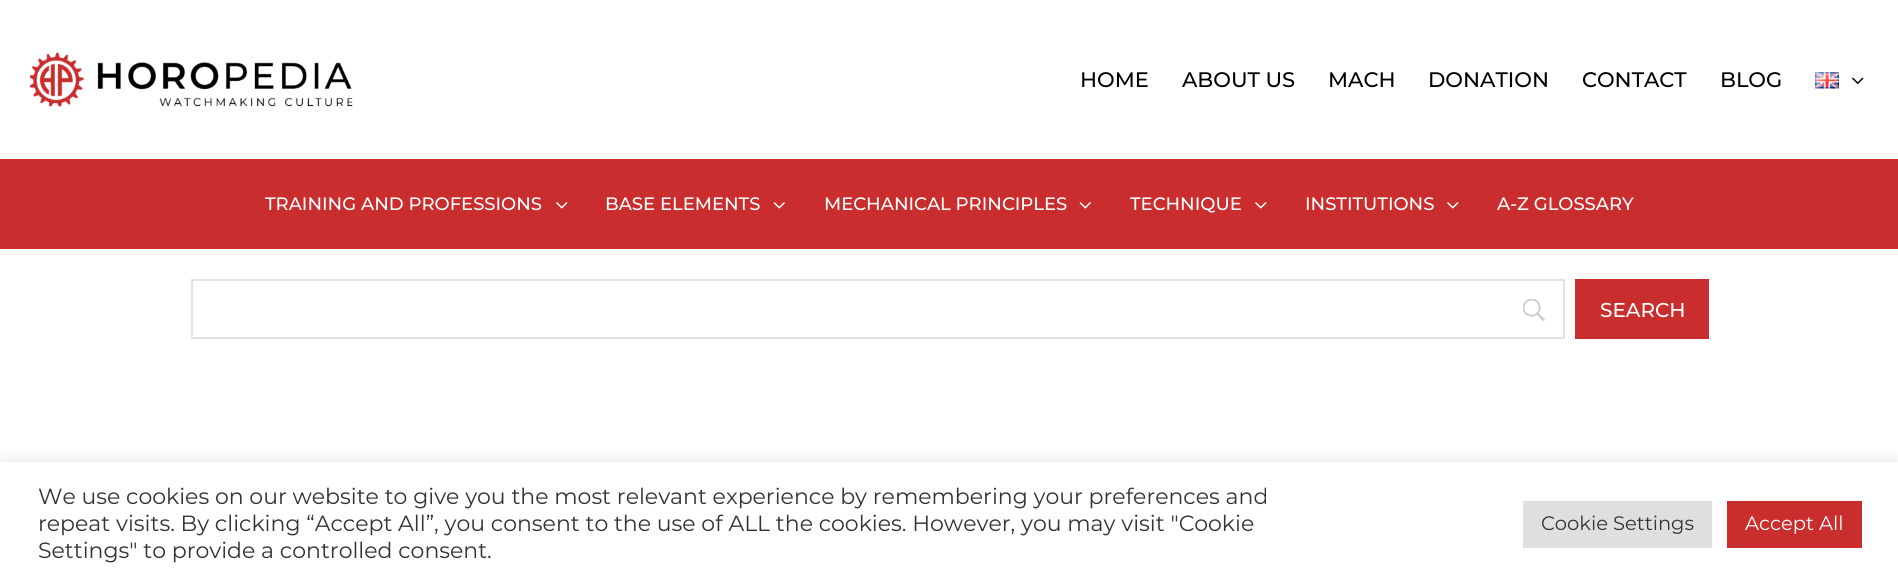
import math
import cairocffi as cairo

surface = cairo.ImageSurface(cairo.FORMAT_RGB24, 1898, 584)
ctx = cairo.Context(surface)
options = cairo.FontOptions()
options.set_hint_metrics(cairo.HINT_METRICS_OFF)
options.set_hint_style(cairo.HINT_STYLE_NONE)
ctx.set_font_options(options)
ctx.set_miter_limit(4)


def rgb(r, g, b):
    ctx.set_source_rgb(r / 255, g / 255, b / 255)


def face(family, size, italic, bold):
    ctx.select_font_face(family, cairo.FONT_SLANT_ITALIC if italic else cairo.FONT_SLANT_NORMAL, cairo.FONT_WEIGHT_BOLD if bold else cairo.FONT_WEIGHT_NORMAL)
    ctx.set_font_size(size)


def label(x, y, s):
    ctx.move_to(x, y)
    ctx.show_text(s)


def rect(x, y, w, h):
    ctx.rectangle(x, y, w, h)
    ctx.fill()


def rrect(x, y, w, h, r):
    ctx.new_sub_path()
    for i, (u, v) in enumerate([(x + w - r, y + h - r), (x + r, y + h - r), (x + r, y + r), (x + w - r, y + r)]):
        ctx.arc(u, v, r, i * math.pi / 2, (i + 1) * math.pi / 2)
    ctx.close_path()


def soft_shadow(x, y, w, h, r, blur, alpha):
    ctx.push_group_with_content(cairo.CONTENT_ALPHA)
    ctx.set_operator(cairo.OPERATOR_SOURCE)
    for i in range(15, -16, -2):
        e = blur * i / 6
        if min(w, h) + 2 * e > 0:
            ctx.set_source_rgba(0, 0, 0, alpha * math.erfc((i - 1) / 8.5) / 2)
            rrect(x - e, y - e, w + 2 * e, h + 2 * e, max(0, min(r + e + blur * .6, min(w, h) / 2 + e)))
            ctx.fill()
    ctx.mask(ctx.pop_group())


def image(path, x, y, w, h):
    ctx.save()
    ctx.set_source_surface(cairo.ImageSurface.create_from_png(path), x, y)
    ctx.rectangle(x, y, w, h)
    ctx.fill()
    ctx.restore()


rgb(255, 255, 255)
ctx.paint()
image('image0.png', 30, 52, 323, 55)
face('Montserrat Medium', 21, 0, 0)
rgb(0, 0, 0)
label(1080, 87, 'HOME')
label(1182, 87, 'ABOUT US')
label(1328, 87, 'MACH')
label(1428, 87, 'DONATION')
label(1582, 87, 'CONTACT')
label(1720, 87, 'BLOG')
image('image1.png', 1815, 72, 24, 17)
image('image2.png', 1852, 77, 12, 7)
rgb(201, 45, 45)
rect(0, 159, 1898, 90)
face('Montserrat Medium', 18, 0, 0)
rgb(255, 255, 255)
label(265, 210, 'TRAINING AND PROFESSIONS')
image('image3.png', 556, 202, 12, 7)
label(605, 210, 'BASE ELEMENTS')
image('image4.png', 773, 202, 12, 7)
label(824, 210, 'MECHANICAL PRINCIPLES')
image('image4.png', 1079, 202, 12, 7)
label(1130, 210, 'TECHNIQUE')
image('image3.png', 1255, 202, 12, 7)
label(1305, 210, 'INSTITUTIONS')
image('image3.png', 1447, 202, 12, 7)
label(1497, 210, 'A-Z GLOSSARY')
image('image5.png', 1523, 299, 22, 22)
ctx.rectangle(192, 280, 1372, 58)
rgb(226, 226, 226)
ctx.stroke()
rgb(201, 45, 45)
rect(1575, 279, 134, 60)
face('Montserrat Medium', 20, 0, 0)
rgb(255, 255, 255)
label(1600, 317, 'SEARCH')
rgb(172, 171, 171)
soft_shadow(0, 461, 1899, 123, 0, 7.5, 0.3)
rgb(255, 255, 255)
rect(0, 462, 1898, 122)
face('Montserrat', 22, 0, 0)
rgb(51, 51, 51)
label(38, 504, 'We use cookies on our website to give you the most relevant experience by remembering your preferences and')
label(38, 531, 'repeat visits. By clicking “Accept All”, you consent to the use of ALL the cookies. However, you may visit "Cookie')
label(38, 558, 'Settings" to provide a controlled consent.')
rgb(222, 223, 224)
rect(1523, 501, 189, 47)
face('Montserrat', 19.5, 0, 0)
rgb(51, 51, 51)
label(1541, 530, 'Cookie Settings')
rgb(201, 46, 45)
rect(1727, 501, 135, 47)
rgb(255, 255, 255)
label(1745, 530, 'Accept All')
surface.write_to_png('render.png')
